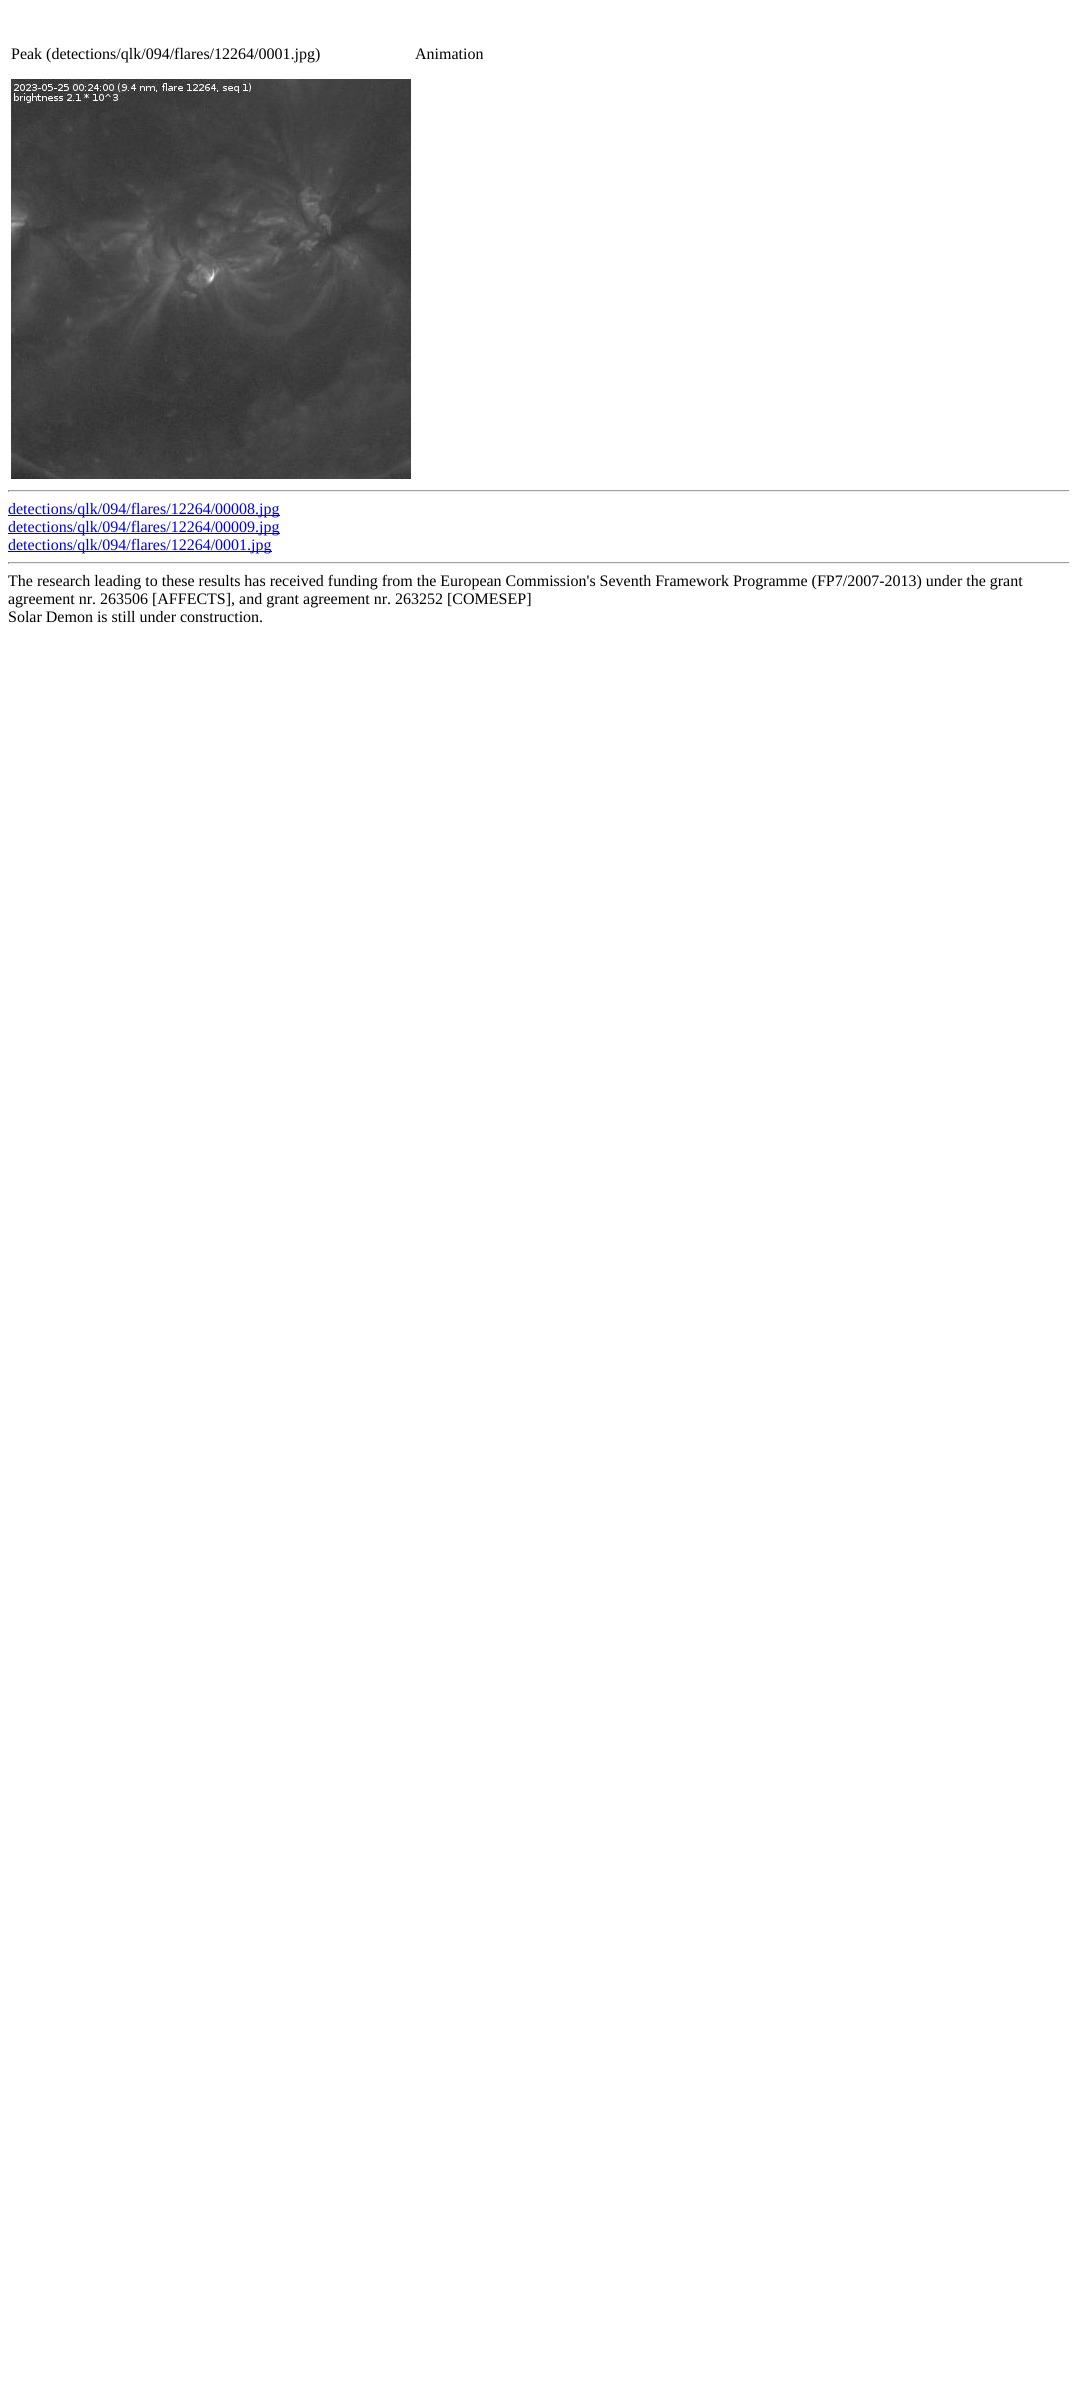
import math
import cairocffi as cairo

surface = cairo.ImageSurface(cairo.FORMAT_RGB24, 1078, 2385)
ctx = cairo.Context(surface)
options = cairo.FontOptions()
options.set_hint_metrics(cairo.HINT_METRICS_OFF)
options.set_hint_style(cairo.HINT_STYLE_NONE)
ctx.set_font_options(options)
ctx.set_miter_limit(4)


def rgb(r, g, b):
    ctx.set_source_rgb(r / 255, g / 255, b / 255)


def face(family, size, italic, bold):
    ctx.select_font_face(family, cairo.FONT_SLANT_ITALIC if italic else cairo.FONT_SLANT_NORMAL, cairo.FONT_WEIGHT_BOLD if bold else cairo.FONT_WEIGHT_NORMAL)
    ctx.set_font_size(size)


def label(x, y, s):
    ctx.move_to(x, y)
    ctx.show_text(s)


def rect(x, y, w, h):
    ctx.rectangle(x, y, w, h)
    ctx.fill()


def image(path, x, y, w, h):
    ctx.save()
    ctx.set_source_surface(cairo.ImageSurface.create_from_png(path), x, y)
    ctx.rectangle(x, y, w, h)
    ctx.fill()
    ctx.restore()


rgb(255, 255, 255)
ctx.paint()
face('Liberation Serif', 16, 0, 0)
rgb(0, 0, 0)
label(11, 59, 'Peak (detections/qlk/094/flares/12264/0001.jpg)')
image('image0.png', 11, 79, 400, 400)
label(415, 59, 'Animation')
rgb(159, 159, 159)
rect(8, 490, 1062, 1)
rgb(238, 238, 238)
rect(1069, 490, 1, 2)
rect(8, 491, 1062, 1)
rgb(159, 159, 159)
rect(8, 490, 1, 2)
rgb(0, 0, 238)
rect(8, 515, 272, 1)
label(8, 514, 'detections/qlk/094/flares/12264/00008.jpg')
rect(8, 533, 272, 1)
label(8, 532, 'detections/qlk/094/flares/12264/00009.jpg')
rect(8, 551, 264, 1)
label(8, 550, 'detections/qlk/094/flares/12264/0001.jpg')
rgb(159, 159, 159)
rect(8, 562, 1062, 1)
rgb(238, 238, 238)
rect(1069, 562, 1, 2)
rect(8, 563, 1062, 1)
rgb(159, 159, 159)
rect(8, 562, 1, 2)
rgb(0, 0, 0)
label(8, 586, 'The research leading to these results has received funding from the European Commission\'s Seventh Framework Programme (FP7/2007-2013) under the grant')
label(8, 604, 'agreement nr. 263506 [AFFECTS], and grant agreement nr. 263252 [COMESEP]')
label(8, 622, 'Solar Demon is still under construction.')
surface.write_to_png('render.png')
